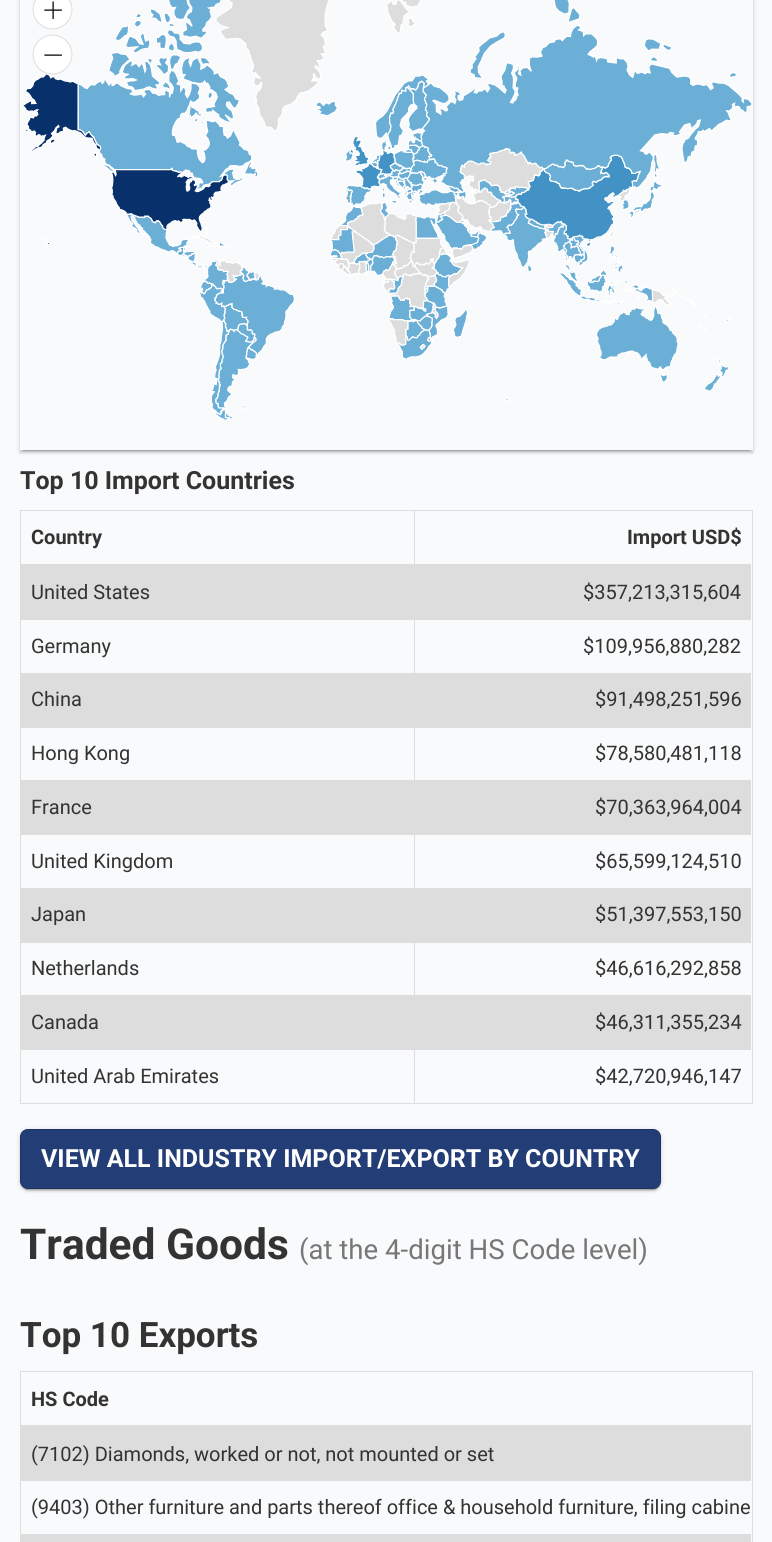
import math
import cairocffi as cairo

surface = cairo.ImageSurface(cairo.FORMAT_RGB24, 772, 1542)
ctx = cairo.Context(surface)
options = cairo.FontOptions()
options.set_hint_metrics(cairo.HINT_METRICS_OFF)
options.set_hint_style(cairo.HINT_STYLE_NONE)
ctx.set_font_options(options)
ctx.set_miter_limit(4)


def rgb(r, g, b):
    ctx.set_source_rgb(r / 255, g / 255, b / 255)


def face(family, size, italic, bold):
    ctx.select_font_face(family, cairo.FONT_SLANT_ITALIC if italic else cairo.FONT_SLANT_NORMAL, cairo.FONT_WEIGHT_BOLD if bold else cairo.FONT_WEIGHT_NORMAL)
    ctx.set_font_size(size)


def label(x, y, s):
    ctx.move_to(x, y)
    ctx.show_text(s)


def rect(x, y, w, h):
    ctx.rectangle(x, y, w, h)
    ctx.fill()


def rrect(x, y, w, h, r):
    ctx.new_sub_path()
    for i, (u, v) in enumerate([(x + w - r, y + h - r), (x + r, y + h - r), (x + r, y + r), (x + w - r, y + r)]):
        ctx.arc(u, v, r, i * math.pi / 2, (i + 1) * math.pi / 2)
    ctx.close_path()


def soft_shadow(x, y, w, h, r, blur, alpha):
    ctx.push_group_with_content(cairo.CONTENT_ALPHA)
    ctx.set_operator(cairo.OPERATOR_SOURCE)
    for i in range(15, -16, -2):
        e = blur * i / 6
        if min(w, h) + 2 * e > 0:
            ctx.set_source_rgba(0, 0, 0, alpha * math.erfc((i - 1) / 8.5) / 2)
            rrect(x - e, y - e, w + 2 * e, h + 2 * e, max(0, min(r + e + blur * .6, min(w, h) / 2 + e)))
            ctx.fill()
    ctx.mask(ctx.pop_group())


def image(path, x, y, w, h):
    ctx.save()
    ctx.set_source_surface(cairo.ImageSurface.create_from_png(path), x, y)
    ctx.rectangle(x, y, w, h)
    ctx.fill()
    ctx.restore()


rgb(249, 250, 251)
ctx.paint()
ctx.save()
ctx.set_fill_rule(cairo.FILL_RULE_EVEN_ODD)
ctx.new_path()
ctx.move_to(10, 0)
ctx.line_to(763, 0)
ctx.line_to(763, 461)
ctx.line_to(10, 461)
ctx.close_path()
ctx.move_to(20, -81)
ctx.line_to(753, -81)
ctx.line_to(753, 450)
ctx.line_to(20, 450)
ctx.close_path()
ctx.clip()
rgb(0, 0, 0)
soft_shadow(20, -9, 733, 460, 0, 3, 0.12)
ctx.restore()
ctx.save()
ctx.rectangle(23, 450, 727, 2)
ctx.clip()
rgb(0, 0, 0)
soft_shadow(23, -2, 727, 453, 0, 0.5, 0.2)
ctx.restore()
ctx.save()
ctx.set_fill_rule(cairo.FILL_RULE_EVEN_ODD)
ctx.new_path()
ctx.move_to(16, 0)
ctx.line_to(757, 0)
ctx.line_to(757, 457)
ctx.line_to(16, 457)
ctx.close_path()
ctx.move_to(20, -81)
ctx.line_to(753, -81)
ctx.line_to(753, 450)
ctx.line_to(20, 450)
ctx.close_path()
ctx.clip()
rgb(0, 0, 0)
soft_shadow(20, -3, 733, 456, 0, 1, 0.14)
ctx.restore()
image('image0.png', 20, 0, 733, 420)
face('Roboto', 25, 0, 1)
rgb(51, 51, 51)
label(20, 489, 'Top 10 Import Countries')
ctx.rectangle(20.5, 510.5, 732, 593)
rgb(221, 221, 221)
ctx.set_line_width(1)
ctx.stroke()
face('Roboto', 20, 0, 1)
rgb(51, 51, 51)
label(31, 544, 'Country')
rgb(221, 221, 221)
rect(414, 511, 1, 55)
rect(21, 564, 730, 3)
rgb(51, 51, 51)
label(627, 544, 'Import USD$')
rgb(221, 221, 221)
rect(21, 567, 730, 53)
face('Roboto', 20, 0, 0)
rgb(51, 51, 51)
label(31, 599, 'United States')
label(583, 599, '$357,213,315,604')
label(31, 653, 'Germany')
rgb(221, 221, 221)
rect(21, 673, 730, 1)
rect(414, 619, 1, 55)
rgb(51, 51, 51)
label(583, 653, '$109,956,880,282')
rgb(221, 221, 221)
rect(21, 674, 730, 54)
rgb(51, 51, 51)
label(31, 706, 'China')
label(595, 706, '$91,498,251,596')
label(31, 760, 'Hong Kong')
rgb(221, 221, 221)
rect(21, 780, 730, 1)
rect(414, 726, 1, 55)
rgb(51, 51, 51)
label(595, 760, '$78,580,481,118')
rgb(221, 221, 221)
rect(21, 781, 730, 54)
rgb(51, 51, 51)
label(31, 814, 'France')
label(595, 814, '$70,363,964,004')
label(31, 868, 'United Kingdom')
rgb(221, 221, 221)
rect(21, 888, 730, 1)
rect(414, 834, 1, 55)
rgb(51, 51, 51)
label(595, 868, '$65,599,124,510')
rgb(221, 221, 221)
rect(21, 889, 730, 54)
rgb(51, 51, 51)
label(31, 921, 'Japan')
label(595, 921, '$51,397,553,150')
label(31, 975, 'Netherlands')
rgb(221, 221, 221)
rect(21, 995, 730, 1)
rect(414, 941, 1, 55)
rgb(51, 51, 51)
label(595, 975, '$46,616,292,858')
rgb(221, 221, 221)
rect(21, 996, 730, 54)
rgb(51, 51, 51)
label(31, 1029, 'Canada')
label(595, 1029, '$46,311,355,234')
label(31, 1083, 'United Arab Emirates')
rgb(221, 221, 221)
rect(414, 1049, 1, 54)
rgb(51, 51, 51)
label(595, 1083, '$42,720,946,147')
rgb(0, 0, 0)
soft_shadow(20, 1130, 641, 60, 8, 3, 0.12)
soft_shadow(23, 1135, 636, 55, 5, 0.5, 0.2)
soft_shadow(20, 1131, 641, 60, 8, 1, 0.14)
rgb(35, 61, 118)
rrect(20.5, 1129.5, 640, 59, 7.5)
ctx.fill_preserve()
rgb(30, 51, 98)
ctx.stroke()
face('Roboto', 25, 0, 1)
rgb(255, 255, 255)
label(41, 1167, 'VIEW ALL INDUSTRY IMPORT/EXPORT BY COUNTRY')
face('Roboto', 42.5, 0, 1)
rgb(51, 51, 51)
label(20, 1259, 'Traded Goods')
face('Roboto', 27.6, 0, 0)
rgb(119, 119, 119)
label(299, 1259, '(at the 4-digit HS Code level)')
face('Roboto', 35, 0, 1)
rgb(51, 51, 51)
label(20, 1347, 'Top 10 Exports')
ctx.rectangle(20.5, 1371.5, 732, 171)
rgb(221, 221, 221)
ctx.stroke()
face('Roboto', 20, 0, 1)
rgb(51, 51, 51)
label(31, 1406, 'HS Code')
rgb(221, 221, 221)
rect(21, 1425, 730, 56)
face('Roboto', 20, 0, 0)
rgb(51, 51, 51)
label(31, 1461, '(7102) Diamonds, worked or not, not mounted or set')
label(31, 1514, '(9403) Other furniture and parts thereof office & household furniture, filing cabine')
rgb(221, 221, 221)
rect(21, 1534, 730, 8)
surface.write_to_png('render.png')
